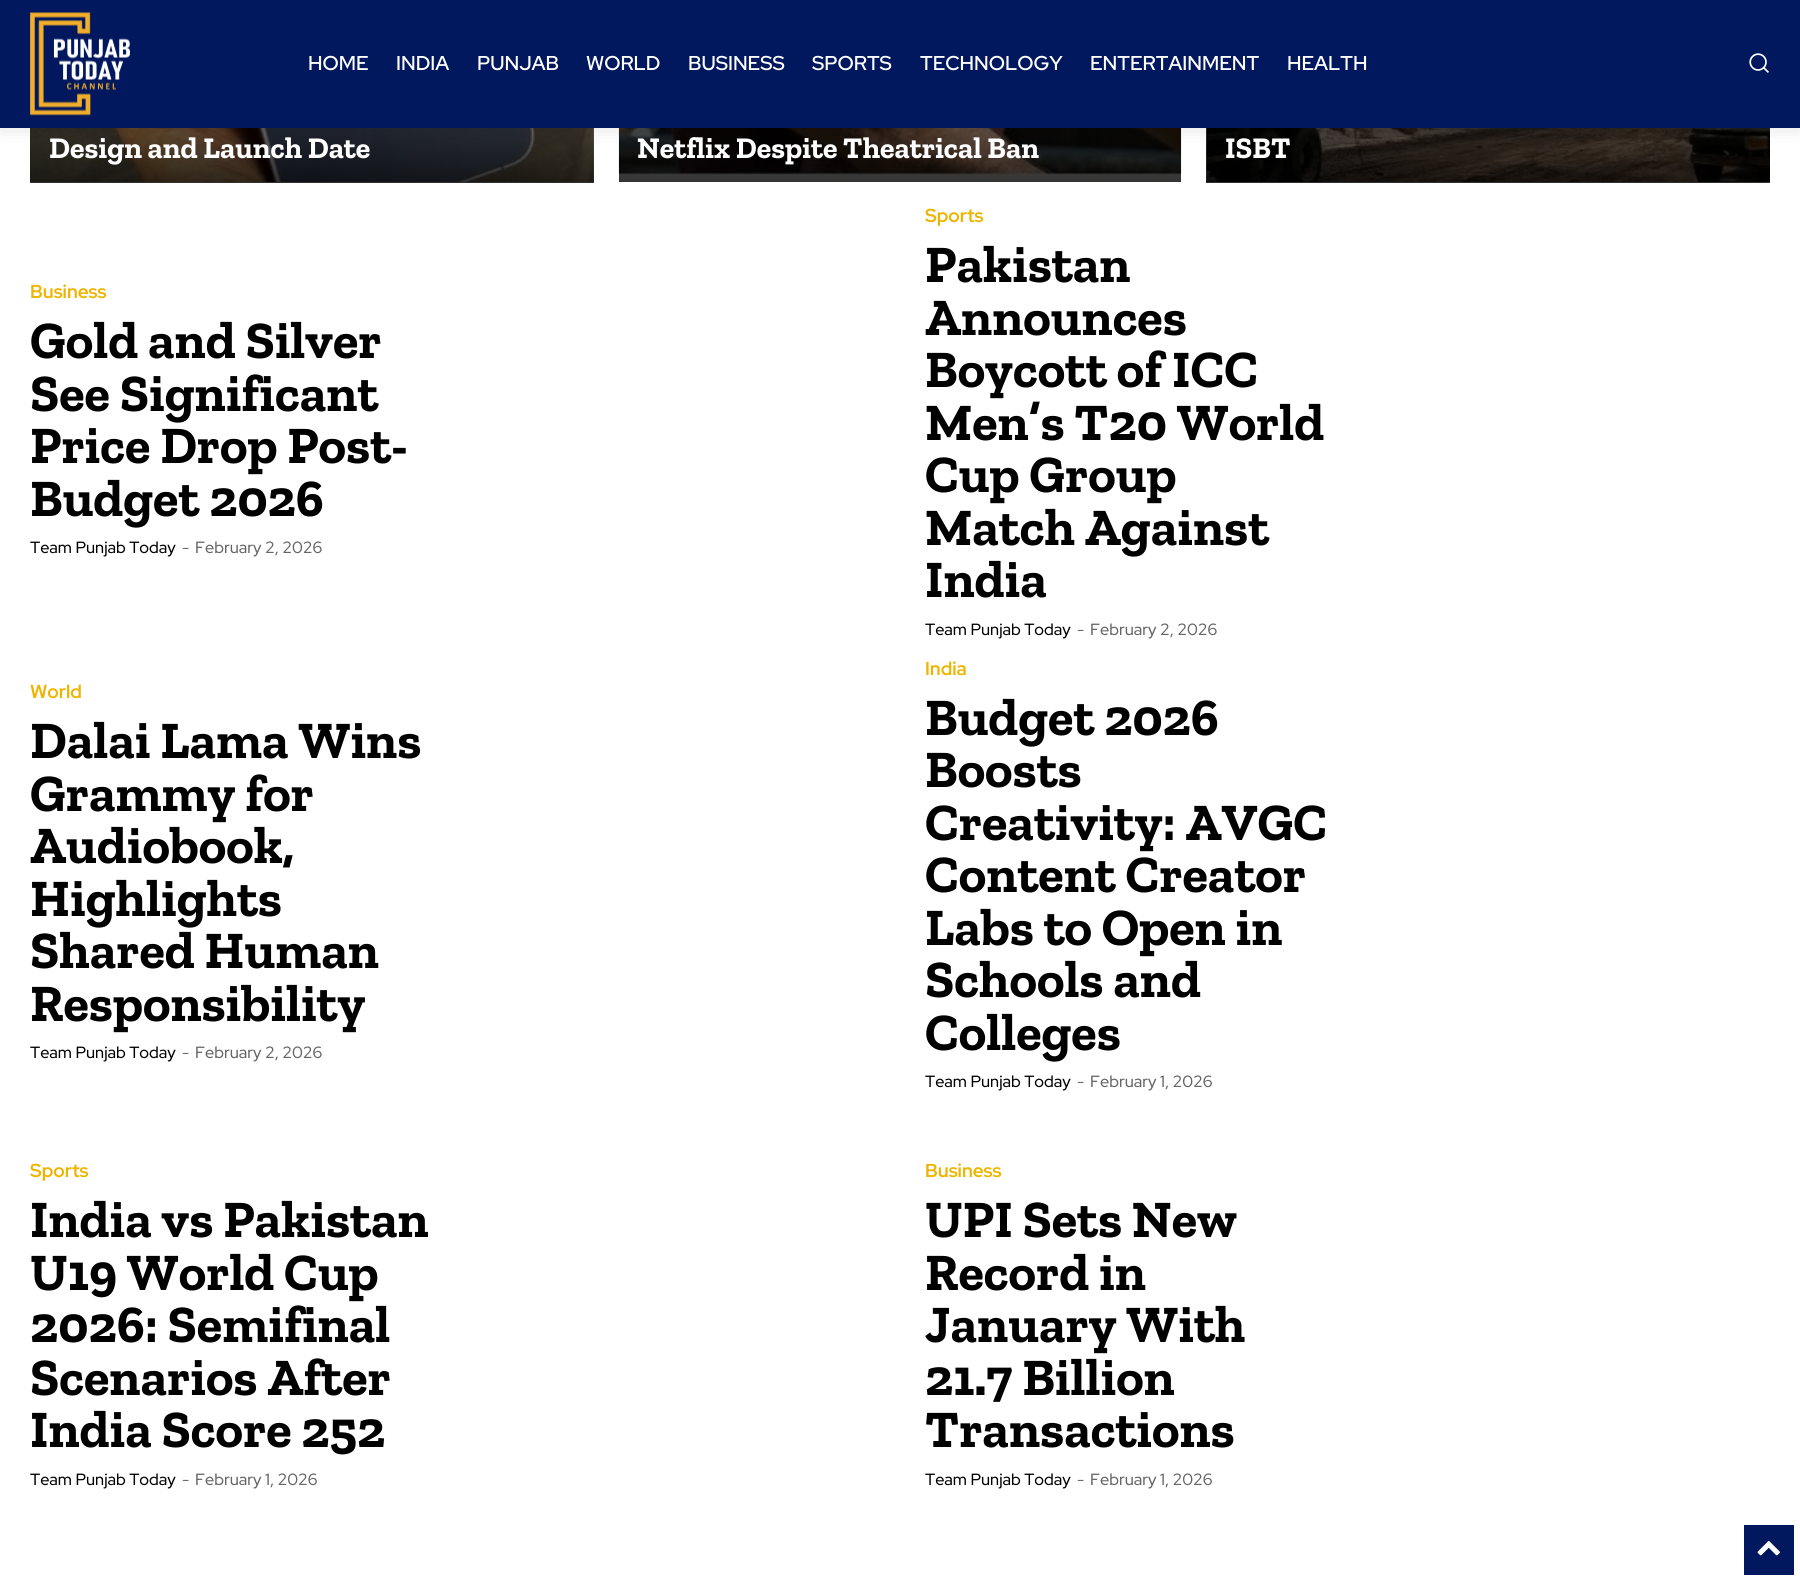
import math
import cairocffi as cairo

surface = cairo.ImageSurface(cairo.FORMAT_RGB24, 1800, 1580)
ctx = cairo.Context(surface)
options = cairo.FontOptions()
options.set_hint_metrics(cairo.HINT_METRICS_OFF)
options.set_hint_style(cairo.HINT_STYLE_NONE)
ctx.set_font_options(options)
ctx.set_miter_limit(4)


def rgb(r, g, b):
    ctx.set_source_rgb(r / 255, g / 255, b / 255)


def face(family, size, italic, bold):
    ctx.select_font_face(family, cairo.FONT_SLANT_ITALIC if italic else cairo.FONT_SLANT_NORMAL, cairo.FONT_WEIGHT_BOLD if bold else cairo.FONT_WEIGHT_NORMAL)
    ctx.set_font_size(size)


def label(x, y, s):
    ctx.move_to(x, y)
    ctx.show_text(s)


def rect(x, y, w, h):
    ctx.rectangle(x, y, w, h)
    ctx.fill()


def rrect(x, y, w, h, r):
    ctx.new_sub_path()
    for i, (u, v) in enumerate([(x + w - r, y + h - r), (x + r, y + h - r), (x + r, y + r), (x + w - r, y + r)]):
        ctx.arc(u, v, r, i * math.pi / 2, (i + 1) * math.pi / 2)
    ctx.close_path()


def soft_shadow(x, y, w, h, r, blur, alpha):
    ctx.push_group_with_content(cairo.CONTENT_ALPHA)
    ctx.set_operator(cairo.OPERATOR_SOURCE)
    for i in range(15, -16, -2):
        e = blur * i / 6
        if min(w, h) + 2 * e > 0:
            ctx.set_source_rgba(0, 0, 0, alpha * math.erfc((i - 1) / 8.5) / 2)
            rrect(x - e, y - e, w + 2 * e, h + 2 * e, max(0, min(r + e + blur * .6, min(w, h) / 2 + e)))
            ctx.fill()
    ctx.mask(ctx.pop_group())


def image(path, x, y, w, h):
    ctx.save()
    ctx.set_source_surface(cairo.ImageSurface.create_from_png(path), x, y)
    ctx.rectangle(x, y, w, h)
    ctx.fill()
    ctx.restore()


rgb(255, 255, 255)
ctx.paint()
rgb(1, 23, 94)
rect(0, 0, 1800, 128)
image('image0.png', 30, 12, 100, 104)
image('image2.png', 30, 128, 564, 55)
gradient = cairo.LinearGradient(312, 183, 312, -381)
gradient.add_color_stop_rgba(0, 0, 0, 0, 0.8)
gradient.add_color_stop_rgba(0.41, 0, 0, 0, 0)
gradient.add_color_stop_rgba(1, 0, 0, 0, 0)
ctx.set_source(gradient)
rect(30, 128, 564, 55)
image('image3.png', 618, 128, 564, 54)
image('image4.png', 1206, 128, 564, 55)
gradient = cairo.LinearGradient(1488, 183, 1488, -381)
gradient.add_color_stop_rgba(0, 0, 0, 0, 0.8)
gradient.add_color_stop_rgba(0.41, 0, 0, 0, 0)
gradient.add_color_stop_rgba(1, 0, 0, 0, 0)
ctx.set_source(gradient)
rect(1206, 128, 564, 55)
ctx.save()
ctx.set_fill_rule(cairo.FILL_RULE_EVEN_ODD)
ctx.new_path()
ctx.move_to(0, 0)
ctx.line_to(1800, 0)
ctx.line_to(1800, 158)
ctx.line_to(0, 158)
ctx.close_path()
ctx.move_to(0, 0)
ctx.line_to(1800, 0)
ctx.line_to(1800, 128)
ctx.line_to(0, 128)
ctx.close_path()
ctx.clip()
rgb(0, 0, 0)
soft_shadow(0, 0, 1800, 128, 0, 9.5, 0.12)
ctx.restore()
face('Red Hat Display SemiBold', 20, 0, 0)
rgb(255, 255, 255)
label(308, 70, 'HOME')
label(396, 70, 'INDIA')
label(477, 70, 'PUNJAB')
label(586, 70, 'WORLD')
label(688, 70, 'BUSINESS')
label(812, 70, 'SPORTS')
label(920, 70, 'TECHNOLOGY')
label(1090, 70, 'ENTERTAINMENT')
label(1287, 70, 'HEALTH')
image('image1.png', 1749, 53, 20, 20)
face('Zilla Slab', 30, 0, 1)
label(49, 158, 'Design and Launch Date')
label(637, 158, 'Netflix Despite Theatrical Ban')
label(1225, 158, 'ISBT')
face('Red Hat Display', 18.75, 0, 1)
rgb(237, 181, 0)
label(30, 298, 'Business')
face('Zilla Slab', 52.5, 0, 1)
rgb(0, 0, 0)
label(30, 358, 'Gold and Silver')
label(30, 411, 'See Significant')
label(30, 463, 'Price Drop Post-')
label(30, 516, 'Budget 2026')
face('Red Hat Display Medium', 16.25, 0, 0)
label(30, 553, 'Team Punjab Today')
face('Red Hat Display', 16.25, 0, 0)
rgb(102, 102, 102)
label(182, 553, '-')
face('Red Hat Display Medium', 16.25, 0, 0)
label(195, 553, 'February 2, 2026')
face('Red Hat Display', 18.75, 0, 1)
rgb(237, 181, 0)
label(925, 222, 'Sports')
face('Zilla Slab', 52.5, 0, 1)
rgb(0, 0, 0)
label(925, 282, 'Pakistan')
label(925, 335, 'Announces')
label(925, 387, 'Boycott of ICC')
label(925, 440, 'Men’s T20 World')
label(925, 492, 'Cup Group')
label(925, 545, 'Match Against')
label(925, 597, 'India')
face('Red Hat Display Medium', 16.25, 0, 0)
label(925, 635, 'Team Punjab Today')
face('Red Hat Display', 16.25, 0, 0)
rgb(102, 102, 102)
label(1077, 635, '-')
face('Red Hat Display Medium', 16.25, 0, 0)
label(1090, 635, 'February 2, 2026')
face('Red Hat Display', 18.75, 0, 1)
rgb(237, 181, 0)
label(30, 698, 'World')
face('Zilla Slab', 52.5, 0, 1)
rgb(0, 0, 0)
label(30, 758, 'Dalai Lama Wins')
label(30, 811, 'Grammy for')
label(30, 863, 'Audiobook,')
label(30, 916, 'Highlights')
label(30, 968, 'Shared Human')
label(30, 1021, 'Responsibility')
face('Red Hat Display Medium', 16.25, 0, 0)
label(30, 1058, 'Team Punjab Today')
face('Red Hat Display', 16.25, 0, 0)
rgb(102, 102, 102)
label(182, 1058, '-')
face('Red Hat Display Medium', 16.25, 0, 0)
label(195, 1058, 'February 2, 2026')
face('Red Hat Display', 18.75, 0, 1)
rgb(237, 181, 0)
label(925, 675, 'India')
face('Zilla Slab', 52.5, 0, 1)
rgb(0, 0, 0)
label(925, 735, 'Budget 2026')
label(925, 787, 'Boosts')
label(925, 840, 'Creativity: AVGC')
label(925, 892, 'Content Creator')
label(925, 945, 'Labs to Open in')
label(925, 997, 'Schools and')
label(925, 1050, 'Colleges')
face('Red Hat Display Medium', 16.25, 0, 0)
label(925, 1087, 'Team Punjab Today')
face('Red Hat Display', 16.25, 0, 0)
rgb(102, 102, 102)
label(1077, 1087, '-')
face('Red Hat Display Medium', 16.25, 0, 0)
label(1090, 1087, 'February 1, 2026')
face('Red Hat Display', 18.75, 0, 1)
rgb(237, 181, 0)
label(30, 1177, 'Sports')
face('Zilla Slab', 52.5, 0, 1)
rgb(0, 0, 0)
label(30, 1237, 'India vs Pakistan')
label(30, 1290, 'U19 World Cup')
label(30, 1342, '2026: Semifinal')
label(30, 1395, 'Scenarios After')
label(30, 1447, 'India Score 252')
face('Red Hat Display Medium', 16.25, 0, 0)
label(30, 1485, 'Team Punjab Today')
face('Red Hat Display', 16.25, 0, 0)
rgb(102, 102, 102)
label(182, 1485, '-')
face('Red Hat Display Medium', 16.25, 0, 0)
label(195, 1485, 'February 1, 2026')
face('Red Hat Display', 18.75, 0, 1)
rgb(237, 181, 0)
label(925, 1177, 'Business')
face('Zilla Slab', 52.5, 0, 1)
rgb(0, 0, 0)
label(925, 1237, 'UPI Sets New')
label(925, 1290, 'Record in')
label(925, 1342, 'January With')
label(925, 1395, '21.7 Billion')
label(925, 1447, 'Transactions')
face('Red Hat Display Medium', 16.25, 0, 0)
label(925, 1485, 'Team Punjab Today')
face('Red Hat Display', 16.25, 0, 0)
rgb(102, 102, 102)
label(1077, 1485, '-')
face('Red Hat Display Medium', 16.25, 0, 0)
label(1090, 1485, 'February 1, 2026')
rgb(1, 23, 94)
rect(1744, 1525, 50, 50)
image('image5.png', 1757, 1541, 23, 15)
surface.write_to_png('render.png')
